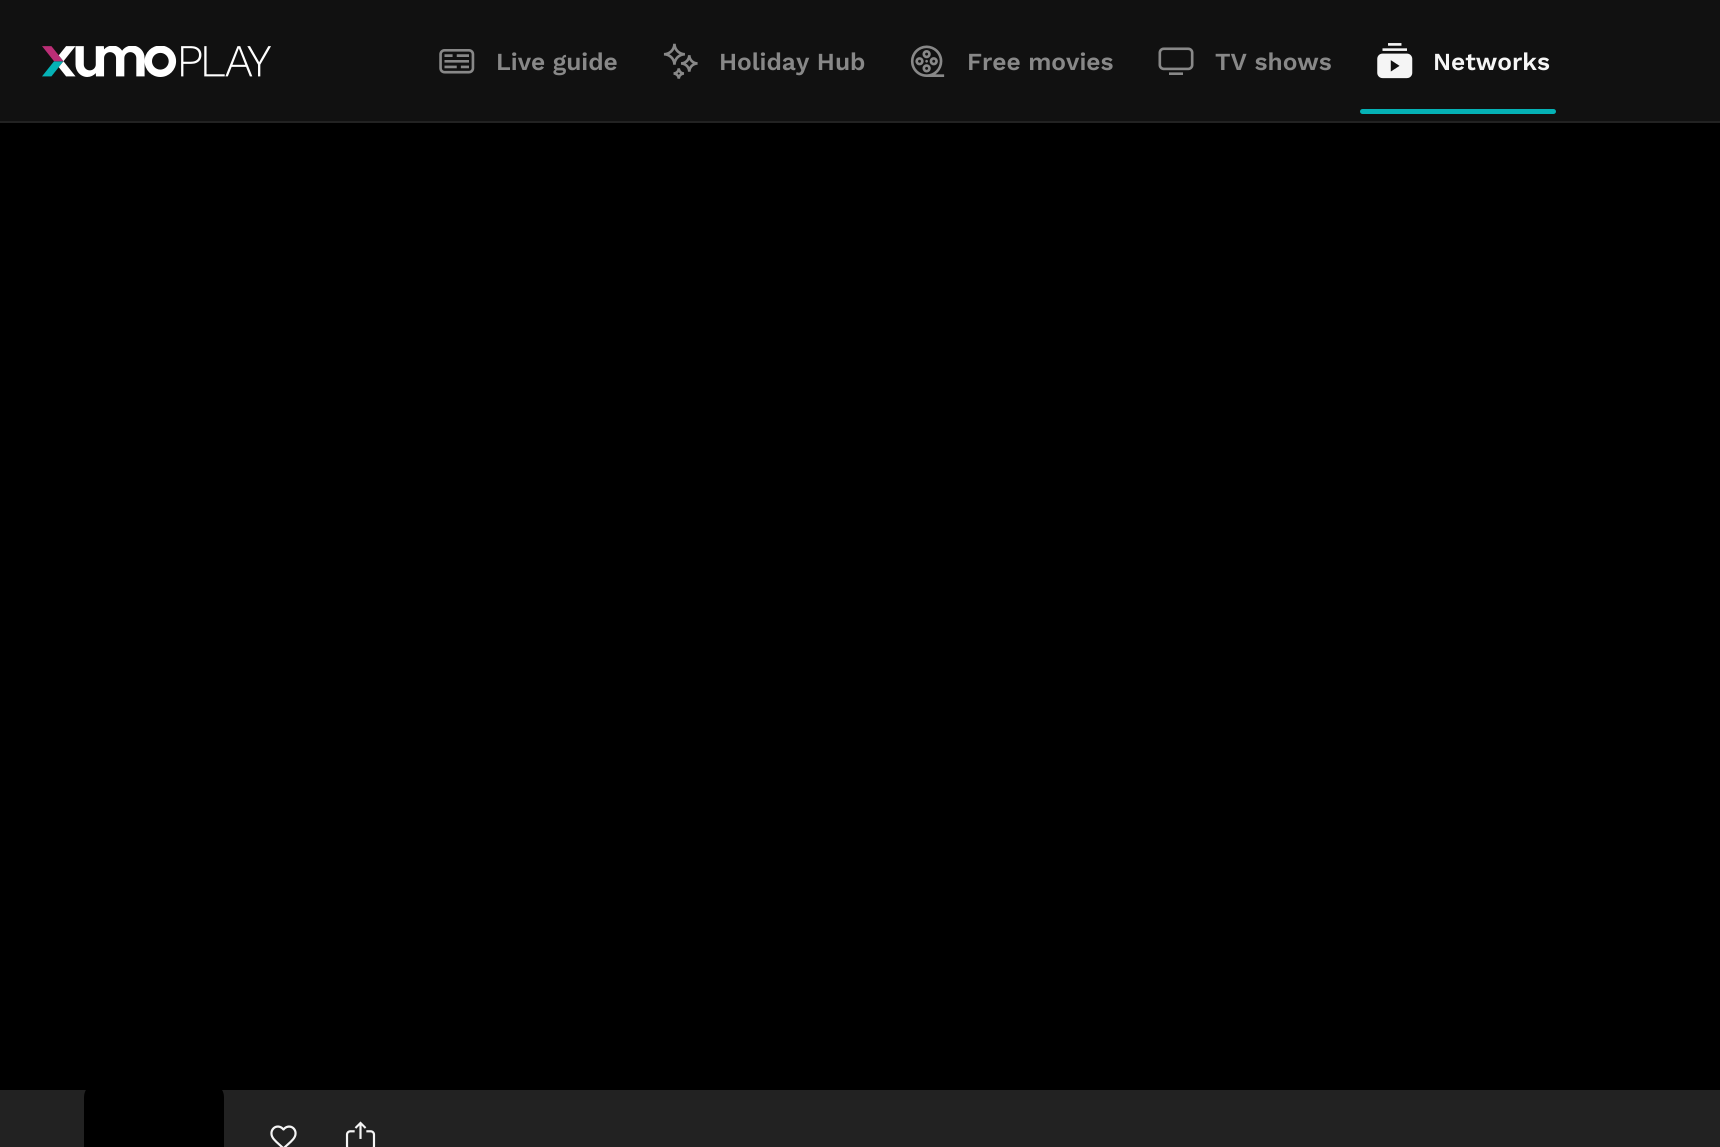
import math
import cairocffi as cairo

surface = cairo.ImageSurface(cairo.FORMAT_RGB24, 1720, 1147)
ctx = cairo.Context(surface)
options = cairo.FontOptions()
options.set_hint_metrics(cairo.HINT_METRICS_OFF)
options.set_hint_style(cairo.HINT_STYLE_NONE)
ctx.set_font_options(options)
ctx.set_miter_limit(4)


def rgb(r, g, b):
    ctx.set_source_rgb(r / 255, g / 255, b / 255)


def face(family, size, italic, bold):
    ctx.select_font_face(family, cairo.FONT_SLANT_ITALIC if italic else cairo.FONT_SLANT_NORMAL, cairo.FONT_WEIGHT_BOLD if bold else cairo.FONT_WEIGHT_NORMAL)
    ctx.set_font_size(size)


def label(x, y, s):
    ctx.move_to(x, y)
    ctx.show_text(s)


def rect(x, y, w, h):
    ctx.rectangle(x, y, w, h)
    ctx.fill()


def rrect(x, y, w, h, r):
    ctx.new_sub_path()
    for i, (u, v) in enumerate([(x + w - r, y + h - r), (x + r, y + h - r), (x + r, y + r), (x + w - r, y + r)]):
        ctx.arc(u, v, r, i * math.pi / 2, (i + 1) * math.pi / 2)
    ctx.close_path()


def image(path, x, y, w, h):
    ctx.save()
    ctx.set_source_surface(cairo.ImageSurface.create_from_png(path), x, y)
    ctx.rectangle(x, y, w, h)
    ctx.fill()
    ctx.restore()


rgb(17, 17, 17)
ctx.paint()
image('image0.png', 42, 46, 229, 31)
image('image1.png', 439, 49, 36, 25)
face('Work Sans SemiBold', 24.5, 0, 0)
rgb(136, 136, 136)
label(496, 70, 'Live guide')
image('image2.png', 663, 43, 35, 36)
label(719, 70, 'Holiday Hub')
image('image3.png', 910, 45, 35, 32)
label(967, 70, 'Free movies')
image('image4.png', 1158, 47, 36, 28)
label(1215, 70, 'TV shows')
image('image5.png', 1377, 43, 36, 36)
rgb(245, 245, 245)
label(1433, 70, 'Networks')
rgb(5, 178, 182)
rrect(1360, 109, 196, 5, 2.5)
ctx.fill()
rgb(34, 34, 34)
rect(0, 121, 1720, 2)
rect(0, 1090, 1720, 57)
rgb(0, 0, 0)
rect(0, 123, 1720, 967)
rrect(84, 1083, 140, 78, 14)
ctx.fill()
image('image6.png', 270, 1125, 27, 22)
image('image7.png', 345, 1121, 31, 26)
surface.write_to_png('render.png')
